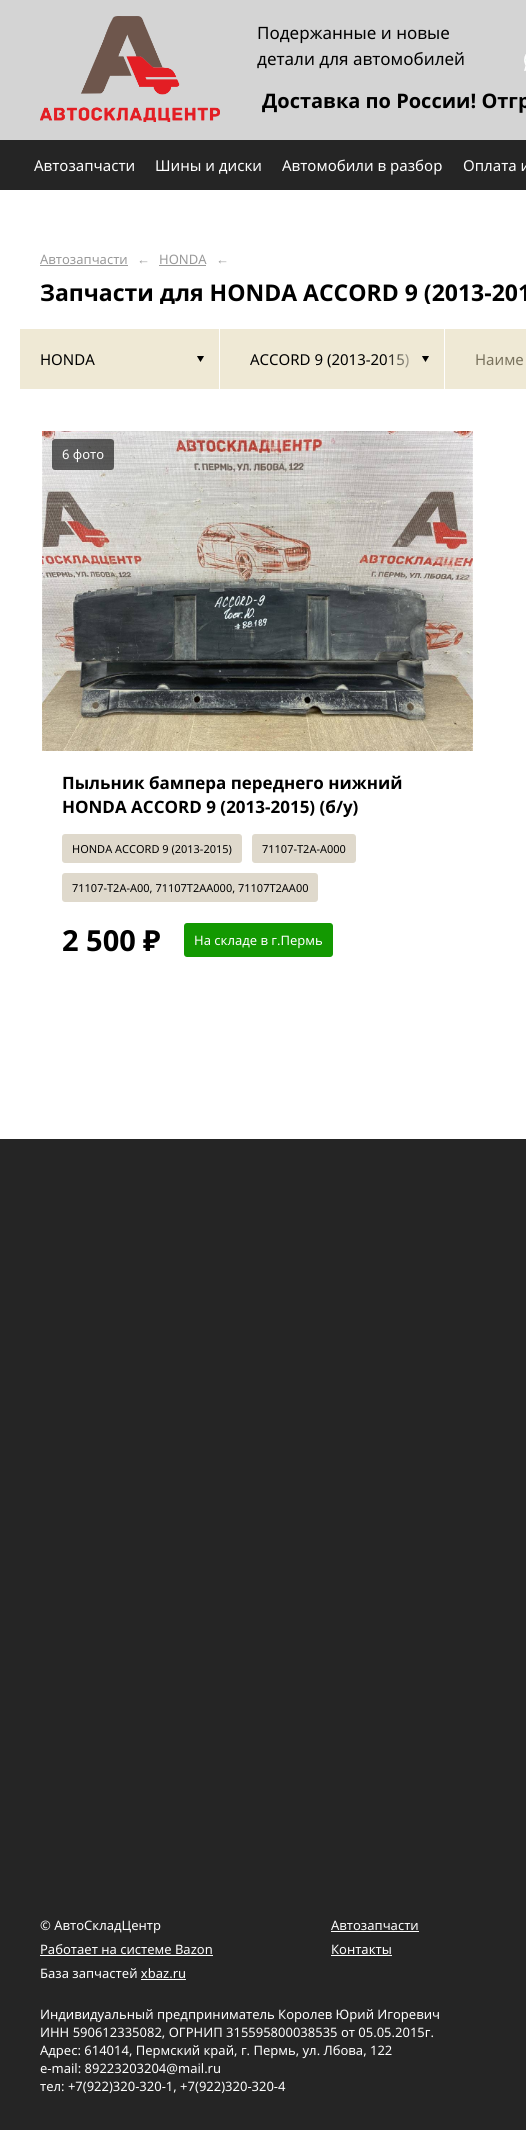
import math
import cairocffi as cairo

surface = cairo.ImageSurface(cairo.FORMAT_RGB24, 526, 2130)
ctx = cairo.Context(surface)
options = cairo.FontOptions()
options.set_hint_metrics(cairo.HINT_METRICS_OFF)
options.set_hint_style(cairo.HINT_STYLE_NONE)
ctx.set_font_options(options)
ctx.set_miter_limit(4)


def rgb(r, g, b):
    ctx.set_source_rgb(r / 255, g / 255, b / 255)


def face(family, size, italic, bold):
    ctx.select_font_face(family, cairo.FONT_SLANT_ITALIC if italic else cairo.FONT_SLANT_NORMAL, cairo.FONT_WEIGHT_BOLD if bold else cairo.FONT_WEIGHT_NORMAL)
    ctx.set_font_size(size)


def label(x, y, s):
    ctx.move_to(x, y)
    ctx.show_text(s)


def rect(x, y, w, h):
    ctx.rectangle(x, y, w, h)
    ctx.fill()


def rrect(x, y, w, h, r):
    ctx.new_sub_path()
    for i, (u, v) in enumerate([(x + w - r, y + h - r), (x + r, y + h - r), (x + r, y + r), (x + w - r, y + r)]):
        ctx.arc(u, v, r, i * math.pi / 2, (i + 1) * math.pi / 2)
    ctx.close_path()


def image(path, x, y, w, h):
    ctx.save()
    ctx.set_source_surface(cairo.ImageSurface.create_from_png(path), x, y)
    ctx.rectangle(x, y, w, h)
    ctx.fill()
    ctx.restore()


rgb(37, 37, 37)
ctx.paint()
rgb(212, 212, 212)
rect(0, 0, 526, 140)
image('image0.png', 40, 16, 180, 106)
face('Noto Sans', 17, 0, 0)
rgb(0, 0, 0)
label(257, 39, 'Подержанные и новые')
label(257, 65, 'детали для автомобилей')
image('image1.png', 524, 54, 2, 17)
face('Noto Sans', 20, 0, 1)
label(262, 108, 'Доставка по России! Отгр')
face('Noto Sans', 15, 0, 0)
rgb(255, 255, 255)
label(34, 171, 'Автозапчасти')
label(155, 171, 'Шины и диски')
label(282, 171, 'Автомобили в разбор')
label(463, 171, 'Оплата и')
rect(0, 190, 526, 949)
face('Noto Sans', 13, 0, 0)
rgb(153, 153, 153)
label(40, 264, 'Автозапчасти')
rect(40, 265, 88, 1)
label(137, 264, '←')
label(159, 264, 'HONDA')
rect(159, 265, 47, 1)
label(216, 264, '←')
ctx.save()
ctx.rectangle(40, 266, 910, 38)
ctx.clip()
face('Noto Sans', 23, 0, 1)
rgb(0, 0, 0)
label(40, 301, 'Запчасти для HONDA ACCORD 9 (2013-201')
ctx.restore()
rgb(239, 233, 213)
rect(20, 329, 199, 60)
face('Noto Sans', 15, 0, 0)
rgb(0, 0, 0)
label(40, 365, 'HONDA')
image('image2.png', 197, 356, 7, 6)
rgb(239, 233, 213)
rect(220, 329, 224, 60)
rgb(0, 0, 0)
label(250, 365, 'ACCORD 9 (2013-2015)')
gradient = cairo.LinearGradient(385, 359, 420, 359)
gradient.add_color_stop_rgba(0, 0.937, 0.914, 0.835, 0)
gradient.add_color_stop_rgba(1, 0.937, 0.914, 0.835, 1)
ctx.set_source(gradient)
rect(386, 354, 23, 14)
image('image2.png', 422, 356, 7, 6)
rgb(239, 233, 213)
rect(445, 329, 81, 60)
rgb(121, 114, 93)
label(475, 365, 'Наиме')
image('image3.png', 42, 431, 431, 320)
ctx.set_source_rgba(0, 0, 0, 0.6)
rrect(52, 439, 62, 31, 3)
ctx.fill()
face('Noto Sans', 13, 0, 0)
rgb(255, 255, 255)
label(62, 459, '6 фото')
face('Noto Sans', 17, 0, 1)
rgb(0, 0, 0)
label(62, 789, 'Пыльник бампера переднего нижний')
label(62, 813, 'HONDA ACCORD 9 (2013-2015) (б/у)')
rgb(223, 217, 204)
rrect(62, 834, 180, 29, 3)
ctx.fill()
face('Noto Sans', 11, 0, 0)
rgb(0, 0, 0)
label(72, 853, 'HONDA ACCORD 9 (2013-2015)')
rgb(223, 217, 204)
rrect(252, 834, 104, 29, 3)
ctx.fill()
rgb(0, 0, 0)
label(262, 853, '71107-T2A-A000')
rgb(223, 217, 204)
rrect(62, 873, 256, 29, 3)
ctx.fill()
rgb(0, 0, 0)
label(72, 892, '71107-T2A-A00, 71107T2AA000, 71107T2AA00')
face('Noto Sans', 29, 0, 1)
label(62, 951, '2 500')
face('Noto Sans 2', 29, 0, 1)
label(143, 951, '₽')
rgb(19, 153, 1)
rrect(184, 923, 149, 34, 3)
ctx.fill()
face('Noto Sans', 13, 0, 0)
rgb(255, 255, 255)
label(194, 945, 'На складе в г.Пермь')
label(40, 1930, '© АвтоСкладЦентр')
label(40, 1954, 'Работает на системе Bazon')
rect(40, 1955, 173, 1)
label(40, 1978, 'База запчастей xbaz.ru')
rect(141, 1979, 45, 1)
label(331, 1930, 'Автозапчасти')
rect(331, 1931, 88, 1)
label(331, 1954, 'Контакты')
rect(331, 1955, 61, 1)
label(40, 2019, 'Индивидуальный предприниматель Королев Юрий Игоревич')
label(40, 2037, 'ИНН 590612335082, ОГРНИП 315595800038535 от 05.05.2015г.')
label(40, 2055, 'Адрес: 614014, Пермский край, г. Пермь, ул. Лбова, 122')
label(40, 2073, 'e-mail: 89223203204@mail.ru')
label(40, 2091, 'тел: +7(922)320-320-1, +7(922)320-320-4')
surface.write_to_png('render.png')
